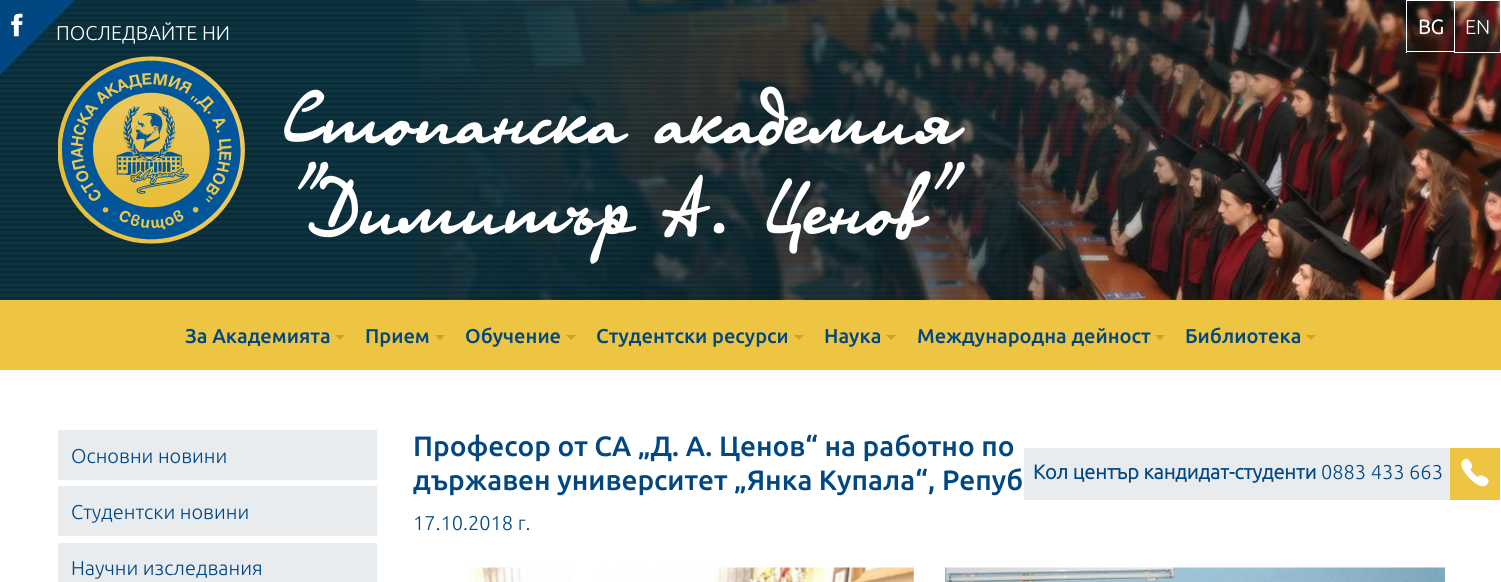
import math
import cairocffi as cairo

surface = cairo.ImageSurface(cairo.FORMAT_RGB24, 1501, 582)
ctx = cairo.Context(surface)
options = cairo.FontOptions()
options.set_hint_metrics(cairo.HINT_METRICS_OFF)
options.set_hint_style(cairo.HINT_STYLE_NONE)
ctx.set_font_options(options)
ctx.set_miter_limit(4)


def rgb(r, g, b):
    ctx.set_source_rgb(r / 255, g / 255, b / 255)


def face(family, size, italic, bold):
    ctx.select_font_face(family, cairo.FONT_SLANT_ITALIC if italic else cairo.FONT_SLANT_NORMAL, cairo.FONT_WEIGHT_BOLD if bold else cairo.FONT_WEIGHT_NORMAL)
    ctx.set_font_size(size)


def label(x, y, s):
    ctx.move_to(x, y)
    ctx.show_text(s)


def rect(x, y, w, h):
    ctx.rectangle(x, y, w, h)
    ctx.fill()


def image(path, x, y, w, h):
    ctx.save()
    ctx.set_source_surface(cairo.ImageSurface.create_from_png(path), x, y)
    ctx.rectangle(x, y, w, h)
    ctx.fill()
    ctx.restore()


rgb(255, 255, 255)
ctx.paint()
image('image0.png', 0, 0, 1501, 300)
image('image2.png', 58, 56, 187, 188)
rgb(1, 71, 130)
ctx.new_path()
ctx.move_to(0, 0)
ctx.line_to(75, 0)
ctx.line_to(0, 75)
ctx.close_path()
ctx.fill()
image('image1.png', 11, 13, 12, 24)
face('Ubuntu Light', 20, 0, 0)
rgb(255, 255, 255)
label(56, 40, 'ПОСЛЕДВАЙТЕ НИ')
rect(1406, 0, 48, 1)
rect(1406, 51, 48, 1)
rect(1406, 0, 1, 53)
face('Ubuntu', 20, 0, 1)
label(1418, 34, 'BG')
ctx.rectangle(1454.5, 0.5, 46, 52)
ctx.set_line_width(1)
ctx.stroke()
face('Ubuntu Light', 20, 0, 0)
label(1465, 34, 'EN')
face('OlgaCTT', 85, 0, 0)
label(284, 144, 'Стопанска академия')
label(284, 234, '"Димитър А. Ценов"')
rgb(237, 197, 66)
rect(0, 300, 1501, 70)
face('Ubuntu Medium', 20, 0, 0)
rgb(1, 71, 130)
label(185, 343, 'За Академията')
rgb(207, 163, 20)
ctx.new_path()
ctx.move_to(335, 335)
ctx.line_to(345, 335)
ctx.line_to(340, 340)
ctx.close_path()
ctx.fill()
rgb(1, 71, 130)
label(365, 343, 'Прием')
rgb(207, 163, 20)
ctx.new_path()
ctx.move_to(435, 335)
ctx.line_to(445, 335)
ctx.line_to(440, 340)
ctx.close_path()
ctx.fill()
rgb(1, 71, 130)
label(465, 343, 'Обучение')
rgb(207, 163, 20)
ctx.new_path()
ctx.move_to(566, 335)
ctx.line_to(576, 335)
ctx.line_to(571, 340)
ctx.close_path()
ctx.fill()
rgb(1, 71, 130)
label(596, 343, 'Студентски ресурси')
rgb(207, 163, 20)
ctx.new_path()
ctx.move_to(794, 335)
ctx.line_to(804, 335)
ctx.line_to(799, 340)
ctx.close_path()
ctx.fill()
rgb(1, 71, 130)
label(824, 343, 'Наука')
rgb(207, 163, 20)
ctx.new_path()
ctx.move_to(886, 335)
ctx.line_to(896, 335)
ctx.line_to(891, 340)
ctx.close_path()
ctx.fill()
rgb(1, 71, 130)
label(917, 343, 'Международна дейност')
rgb(207, 163, 20)
ctx.new_path()
ctx.move_to(1155, 335)
ctx.line_to(1165, 335)
ctx.line_to(1160, 340)
ctx.close_path()
ctx.fill()
rgb(1, 71, 130)
label(1185, 343, 'Библиотека')
rgb(207, 163, 20)
ctx.new_path()
ctx.move_to(1306, 335)
ctx.line_to(1316, 335)
ctx.line_to(1311, 340)
ctx.close_path()
ctx.fill()
rgb(233, 236, 239)
rect(58, 430, 319, 50)
face('Ubuntu Light', 20, 0, 0)
rgb(1, 71, 130)
label(71, 463, 'Основни новини')
rgb(233, 236, 239)
rect(58, 486, 319, 50)
rgb(1, 71, 130)
label(71, 519, 'Студентски новини')
rgb(233, 236, 239)
rect(58, 543, 319, 39)
rgb(1, 71, 130)
label(71, 575, 'Научни изследвания')
face('Ubuntu Medium', 28, 0, 0)
label(413, 456, 'Професор от СА „Д. А. Ценов“ на работно по')
label(413, 490, 'държавен университет „Янка Купала“, Репуб')
face('Ubuntu Light', 20, 0, 0)
label(413, 530, '17.10.2018 г.')
image('image3.png', 467, 567, 447, 15)
image('image4.png', 945, 567, 500, 15)
rgb(233, 236, 239)
rect(1024, 448, 426, 52)
face('Ubuntu', 20, 0, 1)
rgb(1, 71, 130)
label(1033, 479, 'Кол център кандидат-студенти')
face('Ubuntu Light', 20, 0, 0)
label(1321, 479, '0883 433 663')
rgb(237, 197, 66)
rect(1450, 448, 50, 52)
image('image5.png', 1461, 458, 28, 29)
surface.write_to_png('render.png')
